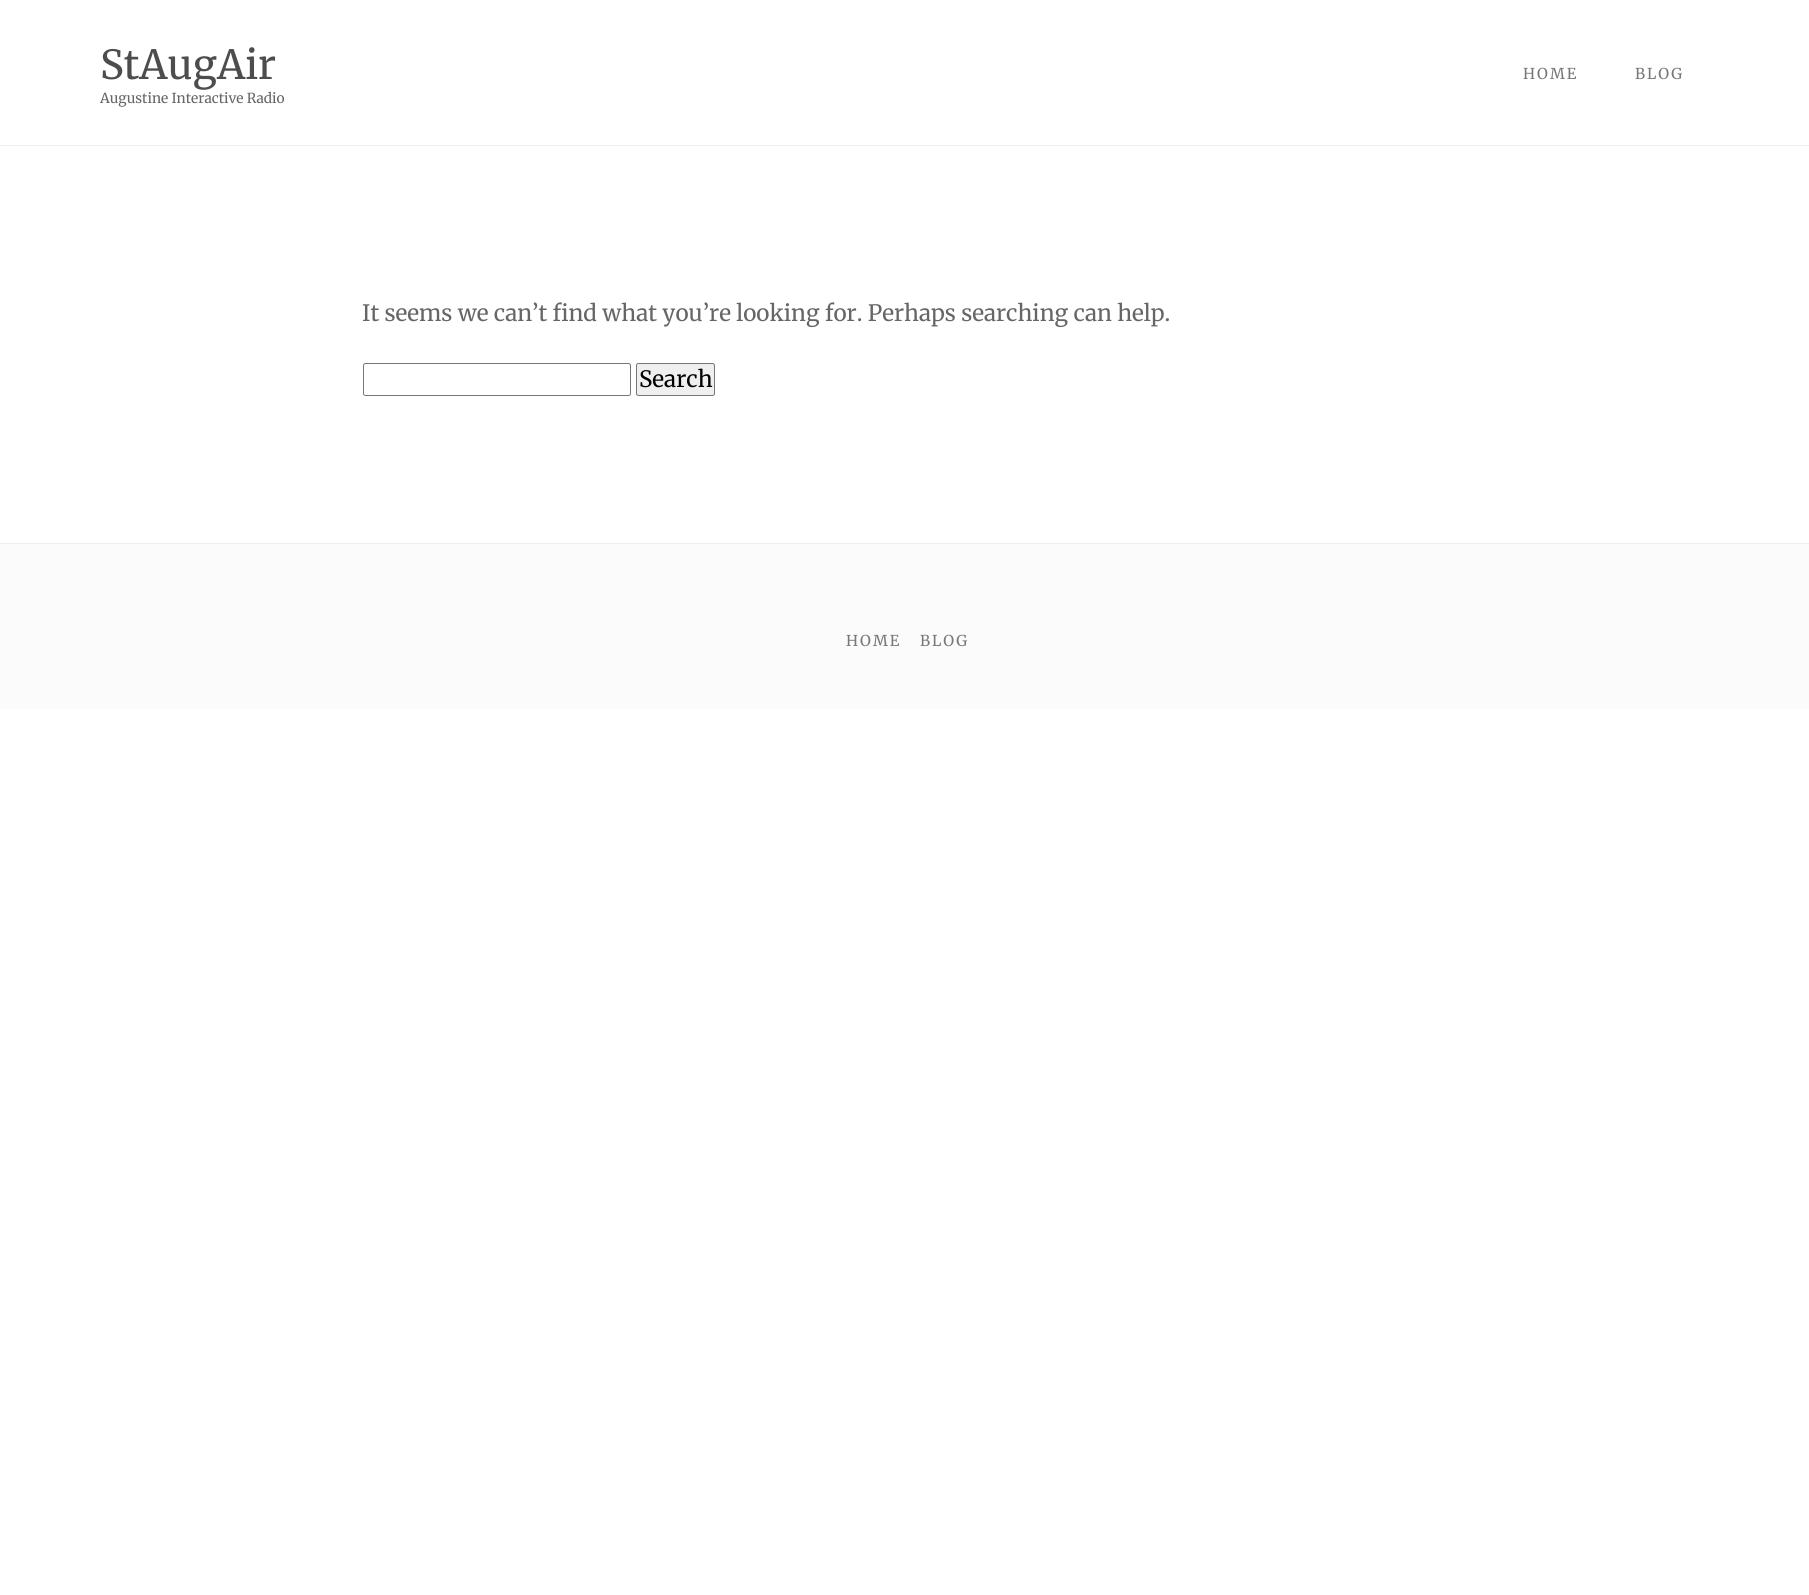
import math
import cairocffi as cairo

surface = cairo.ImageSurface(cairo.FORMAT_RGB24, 1809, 1595)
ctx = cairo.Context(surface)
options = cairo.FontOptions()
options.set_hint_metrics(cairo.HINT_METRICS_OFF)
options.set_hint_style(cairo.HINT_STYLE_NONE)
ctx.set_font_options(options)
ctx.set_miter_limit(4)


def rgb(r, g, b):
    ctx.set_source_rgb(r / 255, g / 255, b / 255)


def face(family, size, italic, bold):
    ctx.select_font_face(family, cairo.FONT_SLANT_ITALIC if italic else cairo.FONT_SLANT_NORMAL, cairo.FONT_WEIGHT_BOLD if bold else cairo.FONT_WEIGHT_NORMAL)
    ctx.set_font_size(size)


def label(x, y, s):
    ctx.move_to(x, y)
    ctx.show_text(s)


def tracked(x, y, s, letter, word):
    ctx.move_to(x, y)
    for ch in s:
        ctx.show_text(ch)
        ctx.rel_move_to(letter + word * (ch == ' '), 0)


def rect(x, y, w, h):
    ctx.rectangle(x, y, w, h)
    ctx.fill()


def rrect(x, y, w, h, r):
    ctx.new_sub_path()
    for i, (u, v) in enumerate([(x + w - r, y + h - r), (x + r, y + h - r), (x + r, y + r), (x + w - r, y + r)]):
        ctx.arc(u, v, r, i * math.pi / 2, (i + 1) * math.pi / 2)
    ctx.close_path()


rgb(255, 255, 255)
ctx.paint()
rgb(238, 238, 238)
rect(0, 145, 1809, 1)
face('Merriweather', 40, 0, 0)
rgb(77, 77, 77)
label(100, 79, 'StAugAir')
face('Merriweather', 13.75, 0, 0)
rgb(102, 102, 102)
label(100, 103, 'Augustine Interactive Radio')
face('Merriweather', 15, 0, 0)
rgb(119, 119, 119)
tracked(1523, 79, 'HOME', 2, 0)
tracked(1635, 79, 'BLOG', 2, 0)
rgb(238, 238, 238)
rect(0, 543, 1809, 1)
face('Merriweather', 22.5, 0, 0)
rgb(102, 102, 102)
label(362, 321, 'It seems we can’t find what you’re looking for. Perhaps searching can help.')
rrect(363.5, 363.5, 267, 32, 2)
rgb(118, 118, 118)
ctx.set_line_width(1)
ctx.stroke()
rgb(239, 239, 239)
rrect(636.5, 363.5, 78, 32, 2)
ctx.fill_preserve()
rgb(118, 118, 118)
ctx.stroke()
rgb(0, 0, 0)
label(639, 387, 'Search')
rgb(251, 251, 251)
rect(0, 544, 1809, 165)
face('Merriweather', 15, 0, 0)
rgb(119, 119, 119)
tracked(846, 646, 'HOME', 2, 0)
tracked(920, 646, 'BLOG', 2, 0)
surface.write_to_png('render.png')
